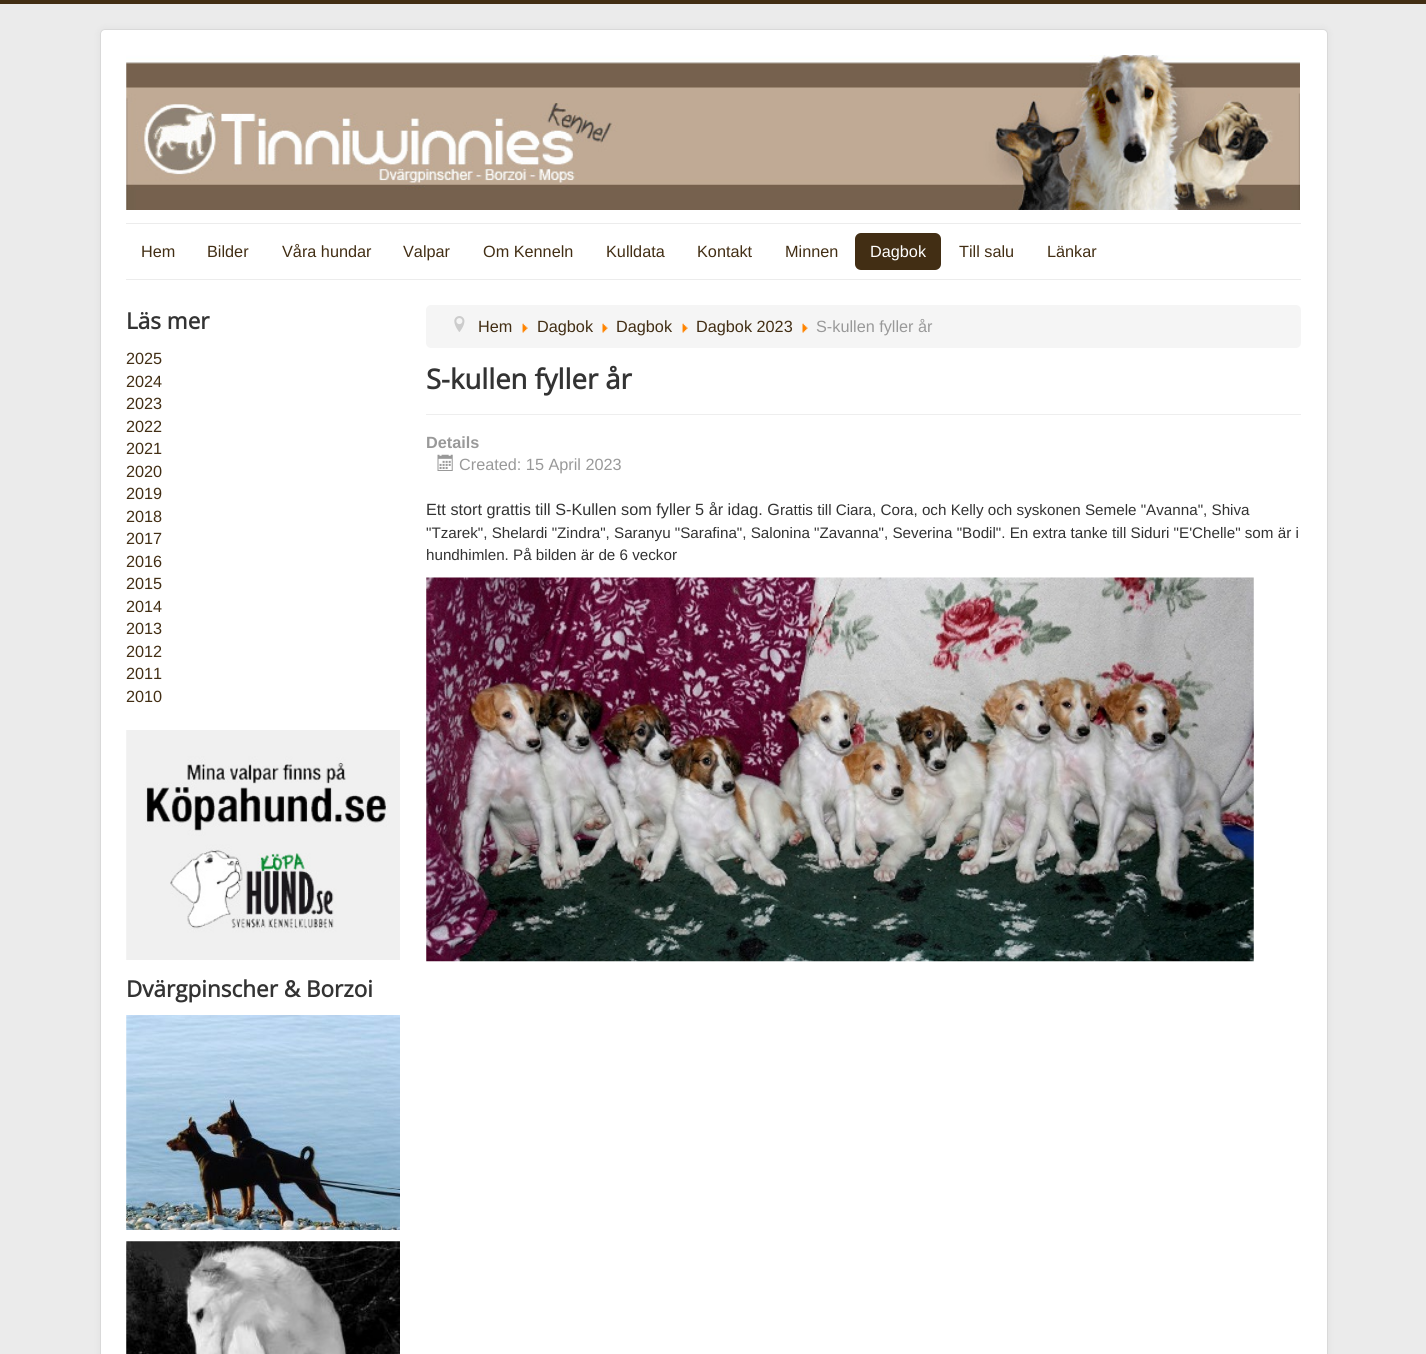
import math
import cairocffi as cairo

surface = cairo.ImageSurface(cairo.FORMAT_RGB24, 1426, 1354)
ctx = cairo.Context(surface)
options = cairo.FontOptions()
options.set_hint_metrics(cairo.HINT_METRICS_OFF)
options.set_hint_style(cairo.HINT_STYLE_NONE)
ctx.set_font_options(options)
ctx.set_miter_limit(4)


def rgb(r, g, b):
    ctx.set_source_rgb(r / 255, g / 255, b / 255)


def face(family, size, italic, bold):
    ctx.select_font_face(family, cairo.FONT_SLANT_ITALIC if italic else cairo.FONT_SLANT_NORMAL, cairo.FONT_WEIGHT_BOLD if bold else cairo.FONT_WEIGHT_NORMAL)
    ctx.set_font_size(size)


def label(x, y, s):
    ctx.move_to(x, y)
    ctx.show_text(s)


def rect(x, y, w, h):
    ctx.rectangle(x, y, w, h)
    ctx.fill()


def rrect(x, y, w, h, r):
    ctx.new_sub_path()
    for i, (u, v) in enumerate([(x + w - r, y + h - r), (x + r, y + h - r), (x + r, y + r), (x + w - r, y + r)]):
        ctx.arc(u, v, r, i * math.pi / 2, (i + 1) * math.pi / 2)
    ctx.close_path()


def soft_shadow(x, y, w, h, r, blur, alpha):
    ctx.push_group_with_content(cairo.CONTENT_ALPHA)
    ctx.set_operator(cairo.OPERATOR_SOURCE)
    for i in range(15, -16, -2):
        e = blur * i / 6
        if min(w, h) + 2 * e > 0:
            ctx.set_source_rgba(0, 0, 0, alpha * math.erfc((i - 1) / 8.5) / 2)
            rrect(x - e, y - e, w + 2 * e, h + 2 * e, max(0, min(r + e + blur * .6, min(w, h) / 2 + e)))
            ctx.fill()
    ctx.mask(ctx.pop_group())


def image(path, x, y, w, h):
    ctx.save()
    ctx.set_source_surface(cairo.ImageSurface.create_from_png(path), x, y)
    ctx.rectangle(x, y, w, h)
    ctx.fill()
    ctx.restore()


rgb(235, 235, 235)
ctx.paint()
rgb(66, 46, 20)
rect(0, 0, 1426, 4)
rgb(0, 0, 0)
soft_shadow(100, 29, 1228, 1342, 5, 4, 0.05)
rgb(255, 255, 255)
rrect(100, 29, 1228, 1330, 5)
ctx.fill()
rrect(100.5, 29.5, 1227, 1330, 4.5)
ctx.set_source_rgba(0, 0, 0, 0.15)
ctx.set_line_width(1)
ctx.stroke()
image('image0.png', 126, 55, 1174, 155)
rgb(236, 236, 236)
rect(126, 223, 1175, 1)
rect(126, 279, 1175, 1)
face('Liberation Sans', 16.25, 0, 0)
rgb(66, 46, 20)
label(141, 257, 'Hem')
label(207, 257, 'Bilder')
label(282, 257, 'Våra hundar')
label(403, 257, 'Valpar')
label(483, 257, 'Om Kenneln')
label(606, 257, 'Kulldata')
label(697, 257, 'Kontakt')
label(785, 257, 'Minnen')
rrect(855, 233, 86, 37, 6)
ctx.fill()
rgb(255, 255, 255)
label(870, 257, 'Dagbok')
rgb(66, 46, 20)
label(959, 257, 'Till salu')
label(1047, 257, 'Länkar')
face('Open Sans', 22.5, 0, 1)
rgb(51, 51, 51)
label(126, 329, 'Läs mer')
face('Liberation Sans', 16.25, 0, 0)
rgb(66, 46, 20)
label(126, 364, '2025')
label(126, 387, '2024')
label(126, 409, '2023')
label(126, 432, '2022')
label(126, 454, '2021')
label(126, 477, '2020')
label(126, 499, '2019')
label(126, 522, '2018')
label(126, 544, '2017')
label(126, 567, '2016')
label(126, 589, '2015')
label(126, 612, '2014')
label(126, 634, '2013')
label(126, 657, '2012')
label(126, 679, '2011')
label(126, 702, '2010')
image('image1.png', 126, 730, 274, 230)
face('Open Sans', 22.5, 0, 1)
rgb(51, 51, 51)
label(126, 997, 'Dvärgpinscher & Borzoi')
image('image2.png', 126, 1015, 274, 215)
image('image3.png', 126, 1241, 274, 113)
rgb(245, 245, 245)
rrect(426, 305, 875, 43, 5)
ctx.fill()
image('image4.png', 454, 316, 11, 16)
face('Liberation Sans', 16.25, 0, 0)
rgb(66, 46, 20)
label(478, 332, 'Hem')
image('image5.png', 522, 323, 6, 10)
label(537, 332, 'Dagbok')
image('image6.png', 602, 323, 6, 10)
label(616, 332, 'Dagbok')
image('image5.png', 682, 323, 6, 10)
label(696, 332, 'Dagbok 2023')
image('image6.png', 802, 323, 6, 10)
rgb(153, 153, 153)
label(816, 332, 'S-kullen fyller år')
rgb(238, 238, 238)
rect(426, 414, 875, 1)
face('Open Sans', 27.5, 0, 1)
rgb(51, 51, 51)
label(426, 389, 'S-kullen fyller år')
face('Liberation Sans', 16.25, 0, 1)
rgb(153, 153, 153)
label(426, 448, 'Details')
image('image7.png', 437, 454, 16, 17)
face('Liberation Sans', 16.25, 0, 0)
label(459, 470, 'Created: 15 April 2023')
rgb(51, 51, 51)
label(426, 515, 'Ett stort grattis till S-Kullen som fyller 5 år idag. G')
face('Liberation Sans', 15.2, 0, 0)
label(780, 515, 'rattis till Ciara, Cora, och Kelly och syskonen Semele "Avanna", Shiva')
label(426, 538, '"Tzarek", Shelardi "Zindra", Saranyu "Sarafina", Salonina "Zavanna", Severina "Bodil". En extra tanke till Siduri "E\'Chelle" som är i')
label(426, 560, 'hundhimlen. På bilden är de 6 veckor')
image('image8.png', 426, 577, 828, 385)
surface.write_to_png('render.png')
